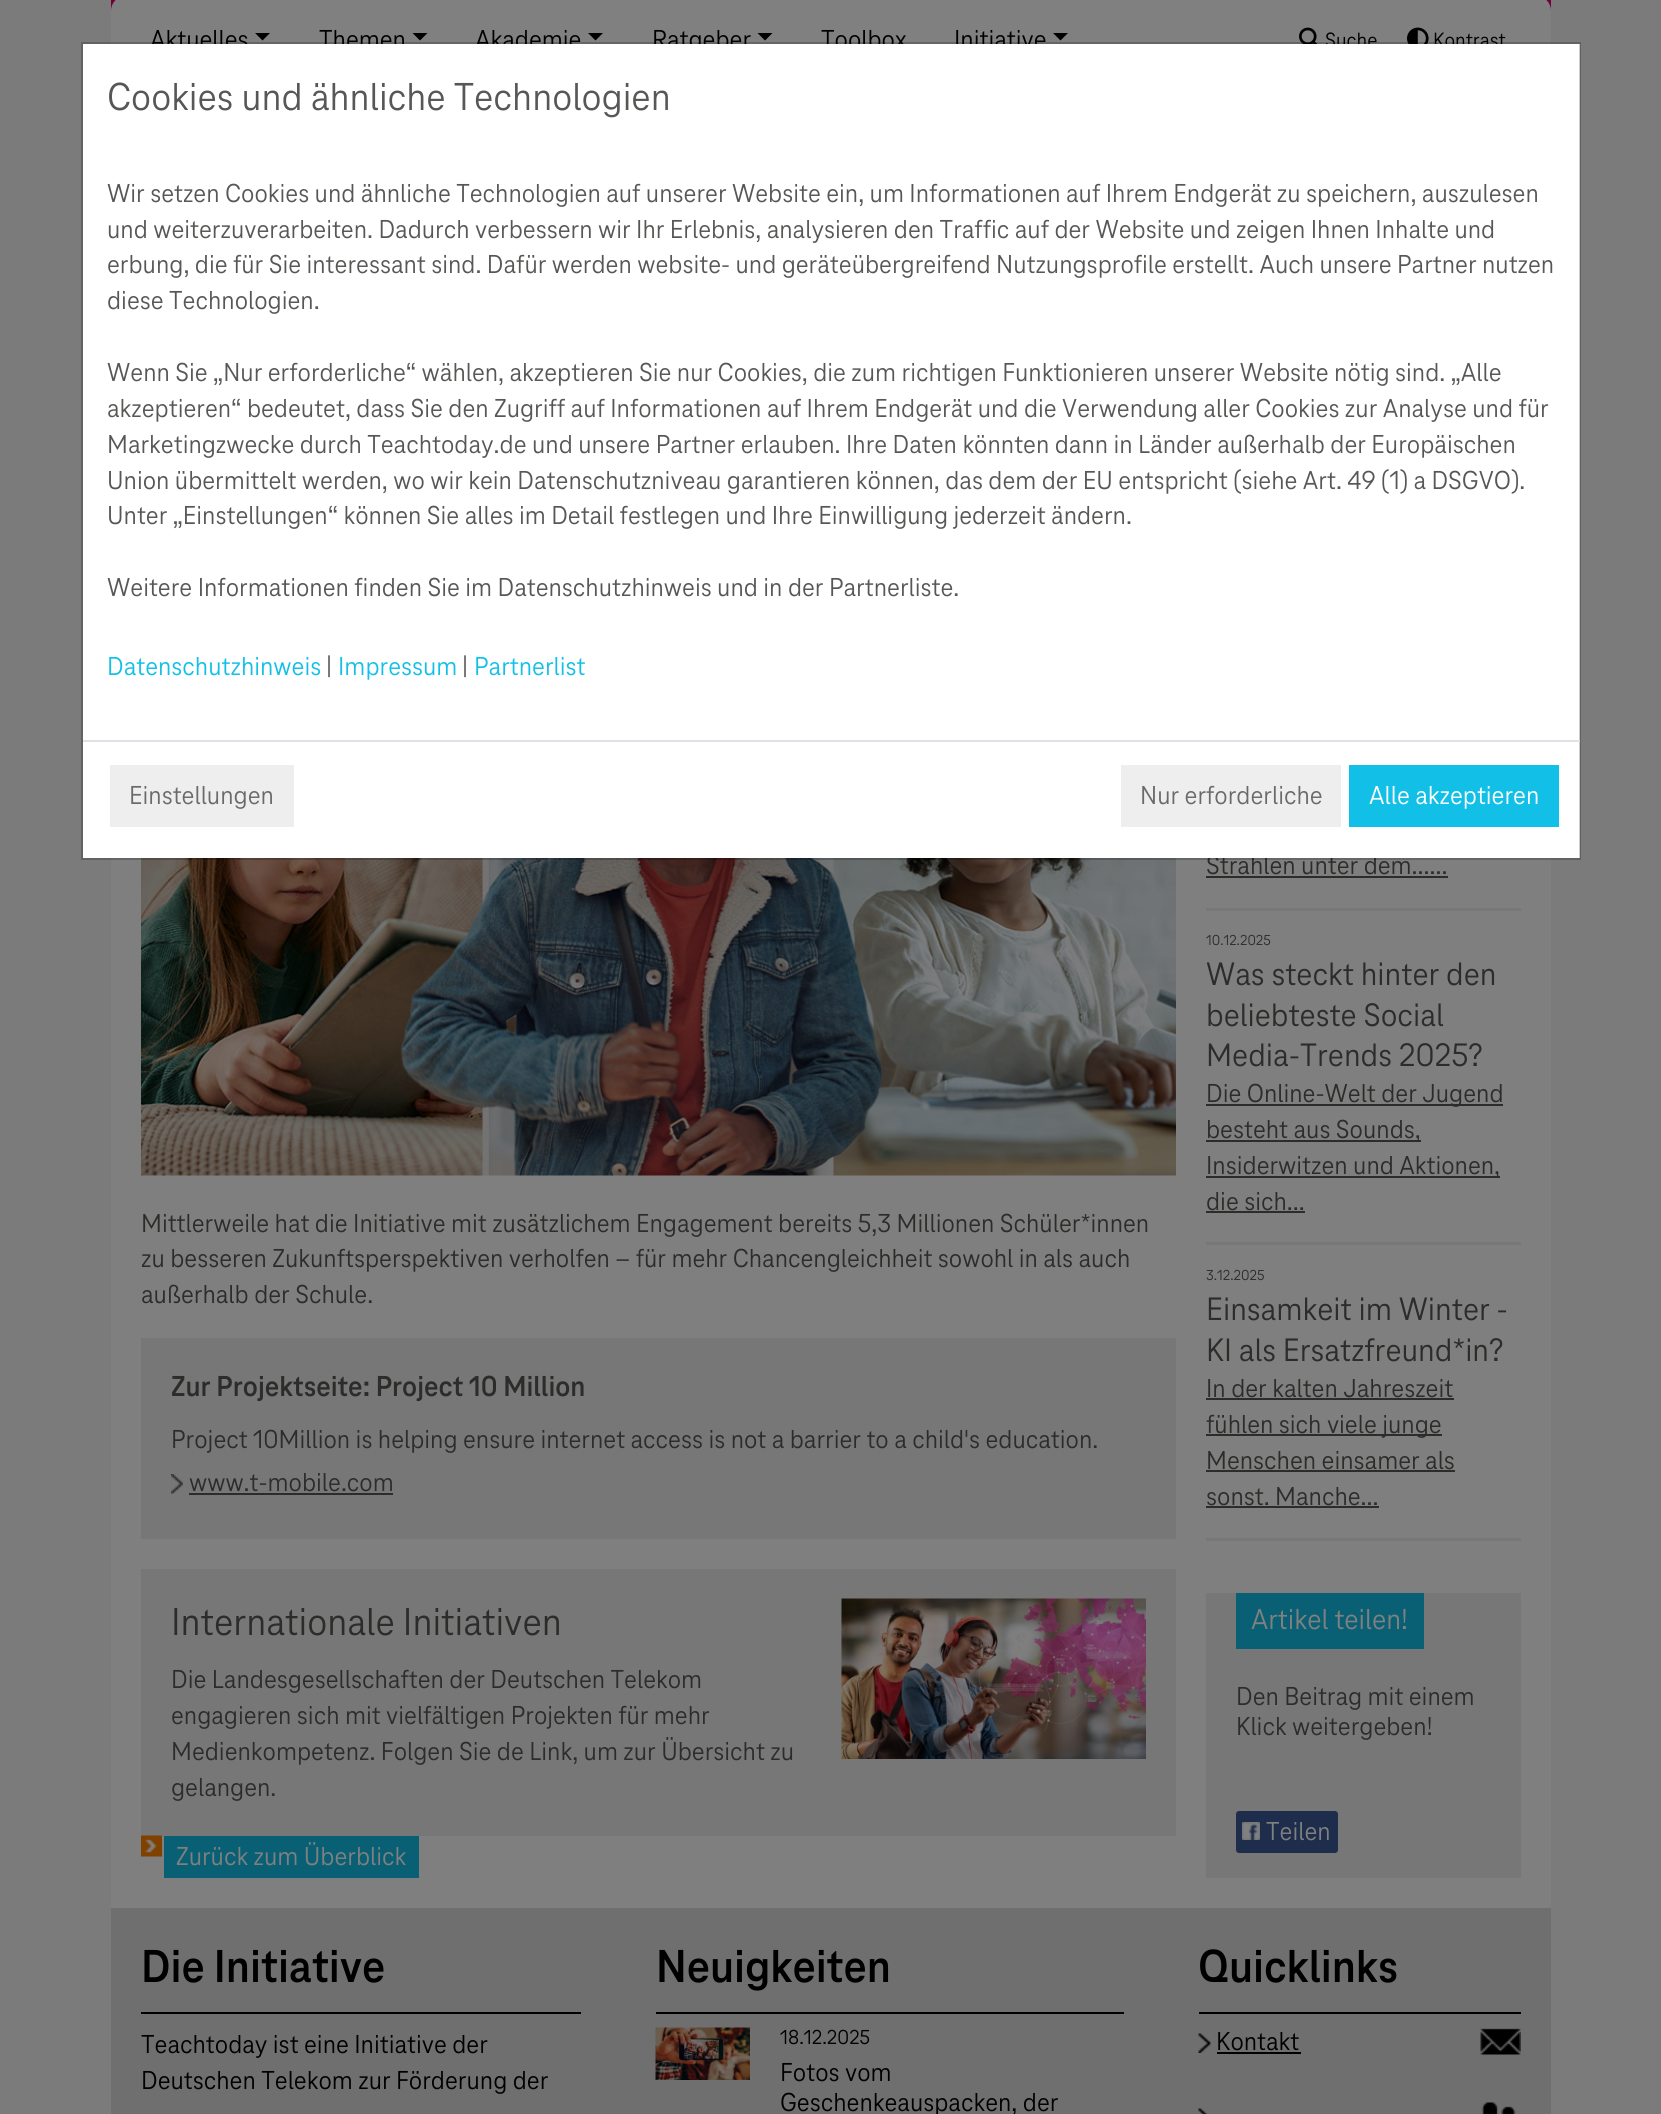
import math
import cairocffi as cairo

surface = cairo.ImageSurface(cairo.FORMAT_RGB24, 1661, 2114)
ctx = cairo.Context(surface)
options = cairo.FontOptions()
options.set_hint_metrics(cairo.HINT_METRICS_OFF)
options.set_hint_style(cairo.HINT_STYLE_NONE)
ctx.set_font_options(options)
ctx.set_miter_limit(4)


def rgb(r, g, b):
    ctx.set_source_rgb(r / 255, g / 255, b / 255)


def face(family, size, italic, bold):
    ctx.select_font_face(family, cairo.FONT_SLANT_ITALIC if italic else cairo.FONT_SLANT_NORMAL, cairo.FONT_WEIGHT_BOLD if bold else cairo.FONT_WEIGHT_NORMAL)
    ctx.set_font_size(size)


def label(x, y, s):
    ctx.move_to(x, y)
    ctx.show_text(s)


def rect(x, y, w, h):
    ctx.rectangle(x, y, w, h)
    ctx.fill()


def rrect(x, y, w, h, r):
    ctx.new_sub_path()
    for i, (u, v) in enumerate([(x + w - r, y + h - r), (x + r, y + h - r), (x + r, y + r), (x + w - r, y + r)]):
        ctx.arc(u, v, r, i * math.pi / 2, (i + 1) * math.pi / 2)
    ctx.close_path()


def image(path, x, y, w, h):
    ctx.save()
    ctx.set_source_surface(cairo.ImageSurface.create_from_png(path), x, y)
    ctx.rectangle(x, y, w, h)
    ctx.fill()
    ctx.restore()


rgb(123, 123, 123)
ctx.paint()
rgb(113, 0, 58)
rect(111, 0, 1440, 11)
rgb(128, 128, 128)
ctx.new_path()
ctx.move_to(126, -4)
ctx.line_to(1536, -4)
ctx.curve_to(1544.5, -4, 1551, 2.5, 1551, 11)
ctx.line_to(1551, 86)
ctx.line_to(111, 86)
ctx.line_to(111, 11)
ctx.curve_to(111, 2.5, 117.5, -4, 126, -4)
ctx.close_path()
ctx.fill()
face('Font', 27, 0, 0)
rgb(0, 0, 0)
label(150, 48, 'Aktuelles')
ctx.new_path()
ctx.move_to(255, 33)
ctx.line_to(270, 33)
ctx.line_to(262.5, 40.5)
ctx.close_path()
ctx.fill()
label(319, 48, 'Themen')
ctx.new_path()
ctx.move_to(412.5, 33)
ctx.line_to(427.5, 33)
ctx.line_to(420, 40.5)
ctx.close_path()
ctx.fill()
label(475, 48, 'Akademie')
ctx.new_path()
ctx.move_to(588, 33)
ctx.line_to(603, 33)
ctx.line_to(595.5, 40.5)
ctx.close_path()
ctx.fill()
label(652, 48, 'Ratgeber')
ctx.new_path()
ctx.move_to(757.5, 33)
ctx.line_to(772.5, 33)
ctx.line_to(765, 40.5)
ctx.close_path()
ctx.fill()
label(821, 48, 'Toolbox')
label(954, 48, 'Initiative')
ctx.new_path()
ctx.move_to(1053, 33)
ctx.line_to(1068, 33)
ctx.line_to(1060.5, 40.5)
ctx.close_path()
ctx.fill()
image('image0.png', 1299, 27, 19, 17)
face('Font', 21.5, 0, 0)
label(1325, 47, 'Suche')
image('image1.png', 1407, 27, 22, 17)
label(1433, 47, 'Kontrast')
rgb(127, 127, 127)
rect(111, 858, 1440, 1050)
face('Font', 27, 0, 0)
rgb(44, 44, 43)
label(1206, 874, 'Strahlen unter dem......')
rgb(255, 255, 255)
rect(83, 44, 1497, 814)
image('image2.png', 141, 858, 1035, 318)
ctx.rectangle(82, 43, 1498, 816)
ctx.set_source_rgba(0, 0, 0, 0.2)
ctx.stroke()
face('Font', 40.5, 0, 0)
rgb(87, 87, 86)
label(107, 110, 'Cookies und ähnliche Technologien')
face('Font', 27, 0, 0)
label(107, 202, 'Wir setzen Cookies und ähnliche Technologien auf unserer Website ein, um Informationen auf Ihrem Endgerät zu speichern, auszulesen')
label(107, 238, 'und weiterzuverarbeiten. Dadurch verbessern wir Ihr Erlebnis, analysieren den Traffic auf der Website und zeigen Ihnen Inhalte und')
label(107, 273, 'erbung, die für Sie interessant sind. Dafür werden website- und geräteübergreifend Nutzungsprofile erstellt. Auch unsere Partner nutzen')
label(107, 309, 'diese Technologien.')
label(107, 381, 'Wenn Sie „Nur erforderliche“ wählen, akzeptieren Sie nur Cookies, die zum richtigen Funktionieren unserer Website nötig sind. „Alle')
label(107, 417, 'akzeptieren“ bedeutet, dass Sie den Zugriff auf Informationen auf Ihrem Endgerät und die Verwendung aller Cookies zur Analyse und für')
label(107, 453, 'Marketingzwecke durch Teachtoday.de und unsere Partner erlauben. Ihre Daten könnten dann in Länder außerhalb der Europäischen')
label(107, 489, 'Union übermittelt werden, wo wir kein Datenschutzniveau garantieren können, das dem der EU entspricht (siehe Art. 49 (1) a DSGVO).')
label(107, 524, 'Unter „Einstellungen“ können Sie alles im Detail festlegen und Ihre Einwilligung jederzeit ändern.')
label(107, 596, 'Weitere Informationen finden Sie im Datenschutzhinweis und in der Partnerliste.')
rgb(18, 192, 231)
label(107, 675, 'Datenschutzhinweis')
rgb(87, 87, 86)
label(326, 675, '|')
rgb(18, 192, 231)
label(338, 675, 'Impressum')
rgb(87, 87, 86)
label(462, 675, '|')
rgb(18, 192, 231)
label(474, 675, 'Partnerlist')
rgb(222, 226, 230)
rect(83, 740, 1497, 2)
rgb(238, 238, 238)
rect(110, 765, 184, 62)
rgb(106, 106, 106)
label(129, 804, 'Einstellungen')
rgb(238, 238, 238)
rect(1121, 765, 220, 62)
rgb(106, 106, 106)
label(1140, 804, 'Nur erforderliche')
rgb(18, 192, 231)
rect(1349, 765, 210, 62)
rgb(255, 255, 255)
label(1369, 804, 'Alle akzeptieren')
rgb(44, 44, 43)
label(141, 1232, 'Mittlerweile hat die Initiative mit zusätzlichem Engagement bereits 5,3 Millionen Schüler*innen')
label(141, 1267, 'zu besseren Zukunftsperspektiven verholfen – für mehr Chancengleichheit sowohl in als auch')
label(141, 1303, 'außerhalb der Schule.')
rgb(119, 119, 119)
rect(141, 1338, 1035, 201)
face('Font', 30, 0, 1)
rgb(44, 44, 43)
label(171, 1396, 'Zur Projektseite: Project 10 Million')
face('Font', 27, 0, 0)
label(171, 1448, 'Project 10Million is helping ensure internet access is not a barrier to a child\'s education.')
image('image3.png', 171, 1474, 12, 20)
label(189, 1491, 'www.t-mobile.com')
rect(189, 1493, 204, 2)
rgb(119, 119, 119)
rect(141, 1569, 1035, 267)
face('Font', 40.5, 0, 0)
rgb(44, 44, 43)
label(171, 1635, 'Internationale Initiativen')
face('Font', 27, 0, 0)
label(171, 1688, 'Die Landesgesellschaften der Deutschen Telekom')
label(171, 1724, 'engagieren sich mit vielfältigen Projekten für mehr')
label(171, 1760, 'Medienkompetenz. Folgen Sie de Link, um zur Übersicht zu')
label(171, 1796, 'gelangen.')
image('image4.png', 841, 1598, 305, 161)
rgb(9, 96, 116)
rect(164, 1836, 255, 42)
image('image5.png', 141, 1835, 21, 22)
rgb(128, 128, 128)
label(176, 1865, 'Zurück zum Überblick')
rgb(119, 119, 119)
rect(1206, 908, 315, 3)
rgb(44, 44, 43)
rect(1206, 876, 242, 2)
rgb(119, 119, 119)
rect(1206, 1242, 315, 3)
face('Font', 15, 0, 0)
rgb(44, 44, 43)
label(1206, 945, '10.12.2025')
face('Font', 33.75, 0, 0)
label(1206, 985, 'Was steckt hinter den')
label(1206, 1026, 'beliebteste Social')
label(1206, 1066, 'Media-Trends 2025?')
rect(1206, 1104, 297, 2)
face('Font', 27, 0, 0)
label(1206, 1102, 'Die Online-Welt der Jugend')
rect(1206, 1140, 215, 2)
label(1206, 1138, 'besteht aus Sounds,')
rect(1206, 1176, 294, 2)
label(1206, 1174, 'Insiderwitzen und Aktionen,')
label(1206, 1210, 'die sich...')
rect(1206, 1211, 99, 2)
rgb(119, 119, 119)
rect(1206, 1538, 315, 3)
face('Font', 15, 0, 0)
rgb(44, 44, 43)
label(1206, 1280, '3.12.2025')
face('Font', 33.75, 0, 0)
label(1206, 1320, 'Einsamkeit im Winter -')
label(1206, 1361, 'KI als Ersatzfreund*in?')
face('Font', 27, 0, 0)
label(1206, 1397, 'In der kalten Jahreszeit')
rect(1206, 1398, 248, 2)
rect(1206, 1434, 236, 2)
label(1206, 1433, 'fühlen sich viele junge')
label(1206, 1469, 'Menschen einsamer als')
rect(1206, 1470, 249, 2)
label(1206, 1505, 'sonst. Manche...')
rect(1206, 1506, 173, 2)
rgb(119, 119, 119)
rect(1206, 1593, 315, 285)
rgb(9, 96, 116)
rect(1236, 1593, 188, 56)
face('Font', 30, 0, 0)
rgb(128, 128, 128)
label(1251, 1629, 'Artikel teilen!')
face('Font', 27, 0, 0)
rgb(44, 44, 43)
label(1236, 1705, 'Den Beitrag mit einem')
label(1236, 1735, 'Klick weitergeben!')
rgb(30, 45, 76)
rrect(1236, 1811, 102, 42, 3)
ctx.fill()
image('image6.png', 1242, 1822, 18, 18)
rgb(128, 128, 128)
label(1266, 1840, 'Teilen')
rgb(111, 111, 111)
rect(111, 1908, 1440, 206)
rgb(0, 0, 0)
rect(141, 2012, 440, 2)
face('Font', 48, 0, 1)
label(141, 1982, 'Die Initiative')
face('Font', 27, 0, 0)
label(141, 2053, 'Teachtoday ist eine Initiative der')
label(141, 2089, 'Deutschen Telekom zur Förderung der')
rect(656, 2012, 468, 2)
face('Font', 48, 0, 1)
label(656, 1982, 'Neuigkeiten')
image('image7.png', 655, 2027, 95, 53)
face('Font', 21, 0, 0)
label(780, 2044, '18.12.2025')
face('Font', 27, 0, 0)
label(780, 2081, 'Fotos vom')
label(780, 2111, 'Geschenkeauspacken, der')
rect(1199, 2012, 322, 2)
face('Font', 48, 0, 1)
label(1198, 1982, 'Quicklinks')
image('image8.png', 1198, 2033, 13, 20)
face('Font', 27, 0, 0)
label(1216, 2050, 'Kontakt')
rect(1217, 2052, 84, 2)
image('image9.png', 1480, 2028, 41, 27)
image('image10.png', 1198, 2108, 10, 6)
image('image11.png', 1481, 2102, 35, 12)
surface.write_to_png('render.png')
